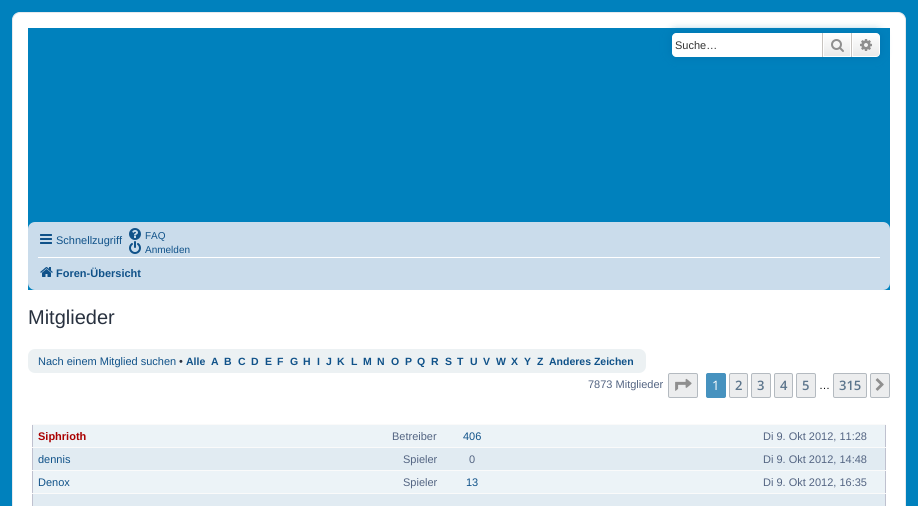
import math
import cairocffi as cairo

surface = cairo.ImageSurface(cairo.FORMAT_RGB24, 918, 506)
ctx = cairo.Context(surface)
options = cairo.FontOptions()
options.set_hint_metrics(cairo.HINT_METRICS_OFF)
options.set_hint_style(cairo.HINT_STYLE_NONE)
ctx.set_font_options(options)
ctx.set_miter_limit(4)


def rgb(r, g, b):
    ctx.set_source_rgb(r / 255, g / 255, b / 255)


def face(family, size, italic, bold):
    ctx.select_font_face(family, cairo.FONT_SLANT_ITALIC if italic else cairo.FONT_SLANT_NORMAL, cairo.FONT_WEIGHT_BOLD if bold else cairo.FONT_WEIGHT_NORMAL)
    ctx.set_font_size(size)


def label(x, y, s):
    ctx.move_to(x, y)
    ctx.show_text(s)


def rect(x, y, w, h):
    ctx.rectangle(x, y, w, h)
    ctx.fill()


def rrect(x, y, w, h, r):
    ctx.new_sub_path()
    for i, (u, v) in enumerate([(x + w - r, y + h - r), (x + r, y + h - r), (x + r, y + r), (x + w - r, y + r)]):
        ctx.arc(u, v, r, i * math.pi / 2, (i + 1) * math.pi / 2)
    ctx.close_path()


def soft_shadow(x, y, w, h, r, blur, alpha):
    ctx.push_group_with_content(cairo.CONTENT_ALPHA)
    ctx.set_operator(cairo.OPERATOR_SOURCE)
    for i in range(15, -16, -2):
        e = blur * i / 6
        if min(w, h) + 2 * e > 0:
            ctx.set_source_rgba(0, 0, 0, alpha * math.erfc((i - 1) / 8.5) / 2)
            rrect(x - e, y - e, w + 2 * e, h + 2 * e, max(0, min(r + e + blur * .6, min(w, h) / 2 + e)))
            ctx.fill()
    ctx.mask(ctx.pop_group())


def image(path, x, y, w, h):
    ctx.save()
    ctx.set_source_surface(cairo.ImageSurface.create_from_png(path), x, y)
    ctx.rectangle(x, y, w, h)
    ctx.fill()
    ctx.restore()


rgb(0, 129, 189)
ctx.paint()
rgb(255, 255, 255)
rrect(12.5, 12.5, 893, 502, 7.5)
ctx.fill_preserve()
rgb(230, 233, 237)
ctx.set_line_width(1)
ctx.stroke()
rgb(0, 129, 189)
rect(28, 28, 862, 262)
rgb(0, 117, 176)
soft_shadow(672, 33, 208, 24, 4, 5, 1)
rgb(255, 255, 255)
ctx.new_path()
ctx.move_to(676, 33)
ctx.line_to(822, 33)
ctx.line_to(822, 57)
ctx.line_to(676, 57)
ctx.curve_to(674, 57, 672, 55, 672, 53)
ctx.line_to(672, 37)
ctx.curve_to(672, 35, 674, 33, 676, 33)
ctx.close_path()
ctx.fill()
face('Liberation Sans', 11, 0, 0)
rgb(51, 51, 51)
label(675, 49, 'Suche…')
gradient = cairo.LinearGradient(837, 33, 837, 57)
gradient.add_color_stop_rgba(0, 1, 1, 1, 1)
gradient.add_color_stop_rgba(1, 0.914, 0.914, 0.914, 1)
ctx.set_source(gradient)
rect(824, 34, 26, 22)
ctx.rectangle(823.5, 33.5, 27, 23)
rgb(255, 255, 255)
ctx.stroke()
rgb(199, 195, 191)
rect(851, 33, 1, 24)
rect(822, 33, 1, 24)
image('image0.png', 831, 39, 13, 13)
gradient = cairo.LinearGradient(866, 33, 866, 57)
gradient.add_color_stop_rgba(0, 1, 1, 1, 1)
gradient.add_color_stop_rgba(1, 0.914, 0.914, 0.914, 1)
ctx.set_source(gradient)
ctx.new_path()
ctx.move_to(852.5, 33.5)
ctx.line_to(876, 33.5)
ctx.curve_to(878, 33.5, 879.5, 35, 879.5, 37)
ctx.line_to(879.5, 53)
ctx.curve_to(879.5, 55, 878, 56.5, 876, 56.5)
ctx.line_to(852.5, 56.5)
ctx.close_path()
ctx.fill_preserve()
rgb(255, 255, 255)
ctx.stroke()
image('image1.png', 860, 39, 12, 12)
rgb(202, 220, 235)
rrect(28, 222, 862, 68, 7)
ctx.fill()
image('image2.png', 40, 234, 12, 10)
rgb(16, 82, 137)
label(56, 244, 'Schnellzugriff')
image('image3.png', 129, 228, 12, 12)
face('Liberation Sans', 10, 0, 0)
label(145, 239, 'FAQ')
image('image4.png', 129, 241, 12, 13)
label(145, 253, 'Anmelden')
rgb(255, 255, 255)
rect(38, 257, 842, 1)
image('image5.png', 40, 267, 13, 10)
face('Liberation Sans', 11, 0, 1)
rgb(16, 82, 137)
label(56, 277, 'Foren-Übersicht')
face('Liberation Sans', 20, 0, 0)
rgb(40, 49, 63)
label(28, 324, 'Mitglieder')
rgb(236, 241, 243)
rrect(28, 349, 618, 24, 7)
ctx.fill()
face('Liberation Sans', 11, 0, 0)
rgb(16, 82, 137)
label(38, 365, 'Nach einem Mitglied suchen')
rgb(40, 49, 63)
label(179, 365, '•')
face('Liberation Sans', 10.5, 0, 1)
rgb(16, 82, 137)
label(186, 365, 'Alle')
label(211, 365, 'A')
label(224, 365, 'B')
label(238, 365, 'C')
label(251, 365, 'D')
label(265, 365, 'E')
label(277, 365, 'F')
label(290, 365, 'G')
label(303, 365, 'H')
label(317, 365, 'I')
label(326, 365, 'J')
label(337, 365, 'K')
label(351, 365, 'L')
label(363, 365, 'M')
label(377, 365, 'N')
label(391, 365, 'O')
label(405, 365, 'P')
label(417, 365, 'Q')
label(431, 365, 'R')
label(445, 365, 'S')
label(457, 365, 'T')
label(470, 365, 'U')
label(483, 365, 'V')
label(496, 365, 'W')
label(511, 365, 'X')
label(524, 365, 'Y')
label(537, 365, 'Z')
label(549, 365, 'Anderes Zeichen')
face('Liberation Sans', 11, 0, 0)
rgb(83, 100, 130)
label(588, 388, '7873 Mitglieder')
rgb(236, 237, 238)
rrect(668.5, 373.5, 29, 24, 1.5)
ctx.fill_preserve()
rgb(180, 186, 192)
ctx.stroke()
image('image6.png', 675, 378, 17, 13)
rgb(70, 146, 191)
rrect(706.5, 373.5, 19, 24, 1.5)
ctx.fill_preserve()
ctx.stroke()
face('Open Sans', 13, 0, 0)
rgb(255, 255, 255)
label(712, 390, '1')
rgb(236, 237, 238)
rrect(729.5, 373.5, 18, 24, 1.5)
ctx.fill_preserve()
rgb(180, 186, 192)
ctx.stroke()
face('Open Sans SemiBold', 13, 0, 0)
rgb(92, 117, 140)
label(735, 390, '2')
rgb(236, 237, 238)
rrect(751.5, 373.5, 19, 24, 1.5)
ctx.fill_preserve()
rgb(180, 186, 192)
ctx.stroke()
rgb(92, 117, 140)
label(757, 390, '3')
rgb(236, 237, 238)
rrect(774.5, 373.5, 18, 24, 1.5)
ctx.fill_preserve()
rgb(180, 186, 192)
ctx.stroke()
rgb(92, 117, 140)
label(780, 390, '4')
rgb(236, 237, 238)
rrect(796.5, 373.5, 19, 24, 1.5)
ctx.fill_preserve()
rgb(180, 186, 192)
ctx.stroke()
rgb(92, 117, 140)
label(802, 390, '5')
face('Liberation Sans', 11, 0, 0)
rgb(0, 0, 0)
label(819, 389, '…')
rgb(236, 237, 238)
rrect(833.5, 373.5, 33, 24, 1.5)
ctx.fill_preserve()
rgb(180, 186, 192)
ctx.stroke()
face('Open Sans SemiBold', 13, 0, 0)
rgb(92, 117, 140)
label(839, 390, '315')
rgb(236, 237, 238)
rrect(870.5, 373.5, 19, 24, 1.5)
ctx.fill_preserve()
rgb(180, 186, 192)
ctx.stroke()
image('image7.png', 875, 378, 9, 13)
rgb(225, 235, 242)
rect(33, 494, 852, 12)
rgb(191, 193, 207)
rect(885, 424, 1, 82)
rect(32, 424, 1, 82)
rgb(250, 250, 250)
rect(32, 493, 854, 1)
rgb(236, 243, 247)
rect(33, 425, 852, 22)
face('Liberation Sans', 11, 0, 1)
rgb(170, 0, 0)
label(38, 440, 'Siphrioth')
face('Liberation Sans', 11, 0, 0)
rgb(83, 100, 130)
label(392, 440, 'Betreiber')
rgb(16, 82, 137)
label(463, 440, '406')
rgb(250, 250, 250)
rect(32, 424, 854, 1)
rgb(83, 100, 130)
label(763, 440, 'Di 9. Okt 2012, 11:28')
rgb(225, 235, 242)
rect(33, 448, 852, 22)
rgb(16, 82, 137)
label(38, 463, 'dennis')
rgb(83, 100, 130)
label(403, 463, 'Spieler')
label(469, 463, '0')
rgb(250, 250, 250)
rect(32, 447, 854, 1)
rgb(83, 100, 130)
label(763, 463, 'Di 9. Okt 2012, 14:48')
rgb(236, 243, 247)
rect(33, 471, 852, 22)
rgb(16, 82, 137)
label(38, 486, 'Denox')
rgb(83, 100, 130)
label(403, 486, 'Spieler')
rgb(16, 82, 137)
label(466, 486, '13')
rgb(250, 250, 250)
rect(32, 470, 854, 1)
rgb(83, 100, 130)
label(763, 486, 'Di 9. Okt 2012, 16:35')
surface.write_to_png('render.png')
